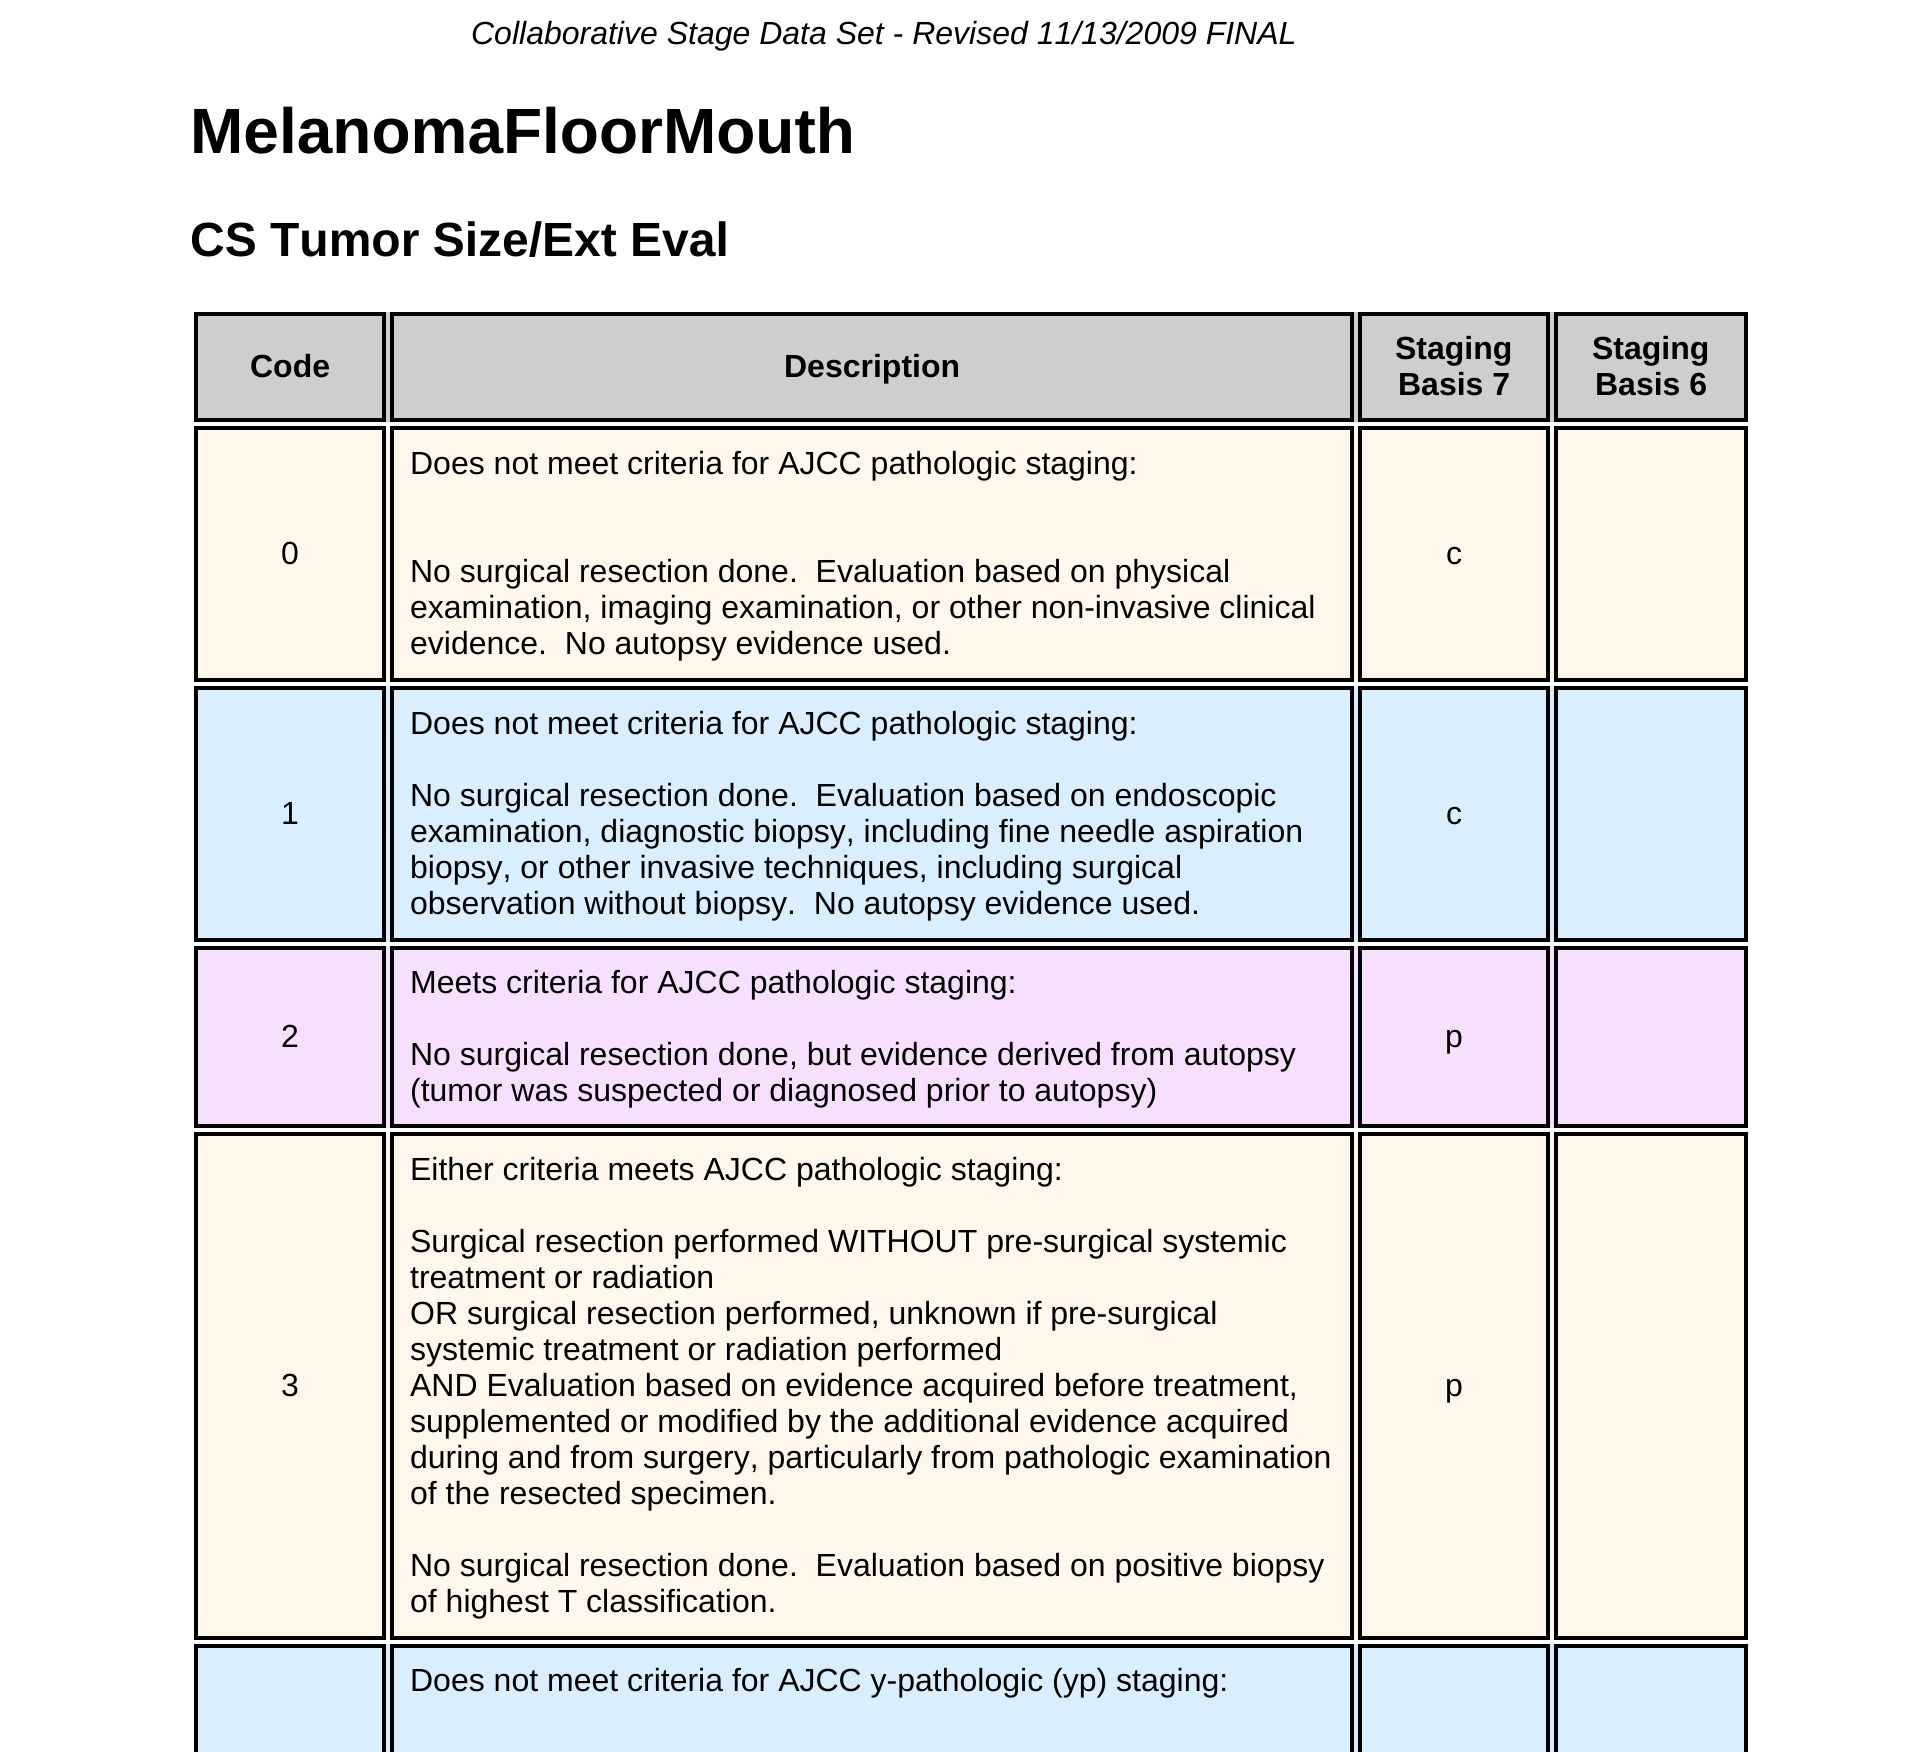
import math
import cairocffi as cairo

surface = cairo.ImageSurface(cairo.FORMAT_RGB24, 1928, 1752)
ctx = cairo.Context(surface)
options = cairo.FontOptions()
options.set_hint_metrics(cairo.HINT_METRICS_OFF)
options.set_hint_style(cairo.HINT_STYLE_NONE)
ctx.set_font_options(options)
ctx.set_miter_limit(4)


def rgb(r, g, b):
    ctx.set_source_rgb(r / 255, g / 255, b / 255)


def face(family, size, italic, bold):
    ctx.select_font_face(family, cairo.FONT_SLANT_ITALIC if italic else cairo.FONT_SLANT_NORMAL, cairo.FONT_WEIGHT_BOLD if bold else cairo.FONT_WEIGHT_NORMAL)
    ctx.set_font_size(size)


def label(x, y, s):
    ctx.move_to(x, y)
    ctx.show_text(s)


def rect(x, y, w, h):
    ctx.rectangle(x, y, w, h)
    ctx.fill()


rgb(255, 255, 255)
ctx.paint()
face('Liberation Sans', 32, 1, 0)
rgb(0, 0, 0)
label(471, 44, 'Collaborative Stage Data Set - Revised 11/13/2009 FINAL')
face('Liberation Sans', 64, 0, 1)
label(190, 153, 'MelanomaFloorMouth')
face('Liberation Sans', 48, 0, 1)
label(190, 256, 'CS Tumor Size/Ext Eval')
rgb(206, 206, 206)
rect(198, 312, 1546, 110)
ctx.rectangle(196, 314, 188, 106)
rgb(0, 0, 0)
ctx.set_line_width(4)
ctx.stroke()
face('Liberation Sans', 32, 0, 1)
label(250, 377, 'Code')
ctx.rectangle(392, 314, 960, 106)
ctx.stroke()
label(784, 377, 'Description')
ctx.rectangle(1360, 314, 188, 106)
ctx.stroke()
label(1395, 359, 'Staging')
label(1398, 395, 'Basis 7')
ctx.rectangle(1556, 314, 190, 106)
ctx.stroke()
label(1592, 359, 'Staging')
label(1595, 395, 'Basis 6')
rgb(255, 247, 236)
rect(198, 426, 1546, 256)
ctx.rectangle(196, 428, 188, 252)
rgb(0, 0, 0)
ctx.stroke()
face('Liberation Sans', 32, 0, 0)
label(281, 564, '0')
ctx.rectangle(392, 428, 960, 252)
ctx.stroke()
label(410, 474, 'Does not meet criteria for AJCC pathologic staging:')
label(410, 582, 'No surgical resection done.  Evaluation based on physical')
label(410, 618, 'examination, imaging examination, or other non-invasive clinical')
label(410, 654, 'evidence.  No autopsy evidence used.')
ctx.rectangle(1360, 428, 188, 252)
ctx.stroke()
label(1446, 564, 'c')
ctx.rectangle(1556, 428, 190, 252)
ctx.stroke()
rgb(217, 239, 255)
rect(198, 686, 1546, 256)
ctx.rectangle(196, 688, 188, 252)
rgb(0, 0, 0)
ctx.stroke()
label(281, 824, '1')
ctx.rectangle(392, 688, 960, 252)
ctx.stroke()
label(410, 734, 'Does not meet criteria for AJCC pathologic staging:')
label(410, 806, 'No surgical resection done.  Evaluation based on endoscopic')
label(410, 842, 'examination, diagnostic biopsy, including fine needle aspiration')
label(410, 878, 'biopsy, or other invasive techniques, including surgical')
label(410, 914, 'observation without biopsy.  No autopsy evidence used.')
ctx.rectangle(1360, 688, 188, 252)
ctx.stroke()
label(1446, 824, 'c')
ctx.rectangle(1556, 688, 190, 252)
ctx.stroke()
rgb(246, 223, 255)
rect(198, 946, 1546, 182)
ctx.rectangle(196, 948, 188, 178)
rgb(0, 0, 0)
ctx.stroke()
label(281, 1047, '2')
ctx.rectangle(392, 948, 960, 178)
ctx.stroke()
label(410, 993, 'Meets criteria for AJCC pathologic staging:')
label(410, 1065, 'No surgical resection done, but evidence derived from autopsy')
label(410, 1101, '(tumor was suspected or diagnosed prior to autopsy)')
ctx.rectangle(1360, 948, 188, 178)
ctx.stroke()
label(1445, 1047, 'p')
ctx.rectangle(1556, 948, 190, 178)
ctx.stroke()
rgb(255, 247, 236)
rect(198, 1132, 1546, 508)
ctx.rectangle(196, 1134, 188, 504)
rgb(0, 0, 0)
ctx.stroke()
label(281, 1396, '3')
ctx.rectangle(392, 1134, 960, 504)
ctx.stroke()
label(410, 1180, 'Either criteria meets AJCC pathologic staging:')
label(410, 1252, 'Surgical resection performed WITHOUT pre-surgical systemic')
label(410, 1288, 'treatment or radiation')
label(410, 1324, 'OR surgical resection performed, unknown if pre-surgical')
label(410, 1360, 'systemic treatment or radiation performed')
label(410, 1396, 'AND Evaluation based on evidence acquired before treatment,')
label(410, 1432, 'supplemented or modified by the additional evidence acquired')
label(410, 1468, 'during and from surgery, particularly from pathologic examination')
label(410, 1504, 'of the resected specimen.')
label(410, 1576, 'No surgical resection done.  Evaluation based on positive biopsy')
label(410, 1612, 'of highest T classification.')
ctx.rectangle(1360, 1134, 188, 504)
ctx.stroke()
label(1445, 1396, 'p')
ctx.rectangle(1556, 1134, 190, 504)
ctx.stroke()
rgb(217, 239, 255)
rect(198, 1644, 1546, 108)
ctx.rectangle(196, 1646, 188, 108)
rgb(0, 0, 0)
ctx.stroke()
ctx.rectangle(392, 1646, 960, 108)
ctx.stroke()
label(410, 1691, 'Does not meet criteria for AJCC y-pathologic (yp) staging:')
ctx.rectangle(1360, 1646, 188, 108)
ctx.stroke()
ctx.rectangle(1556, 1646, 190, 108)
ctx.stroke()
surface.write_to_png('render.png')
